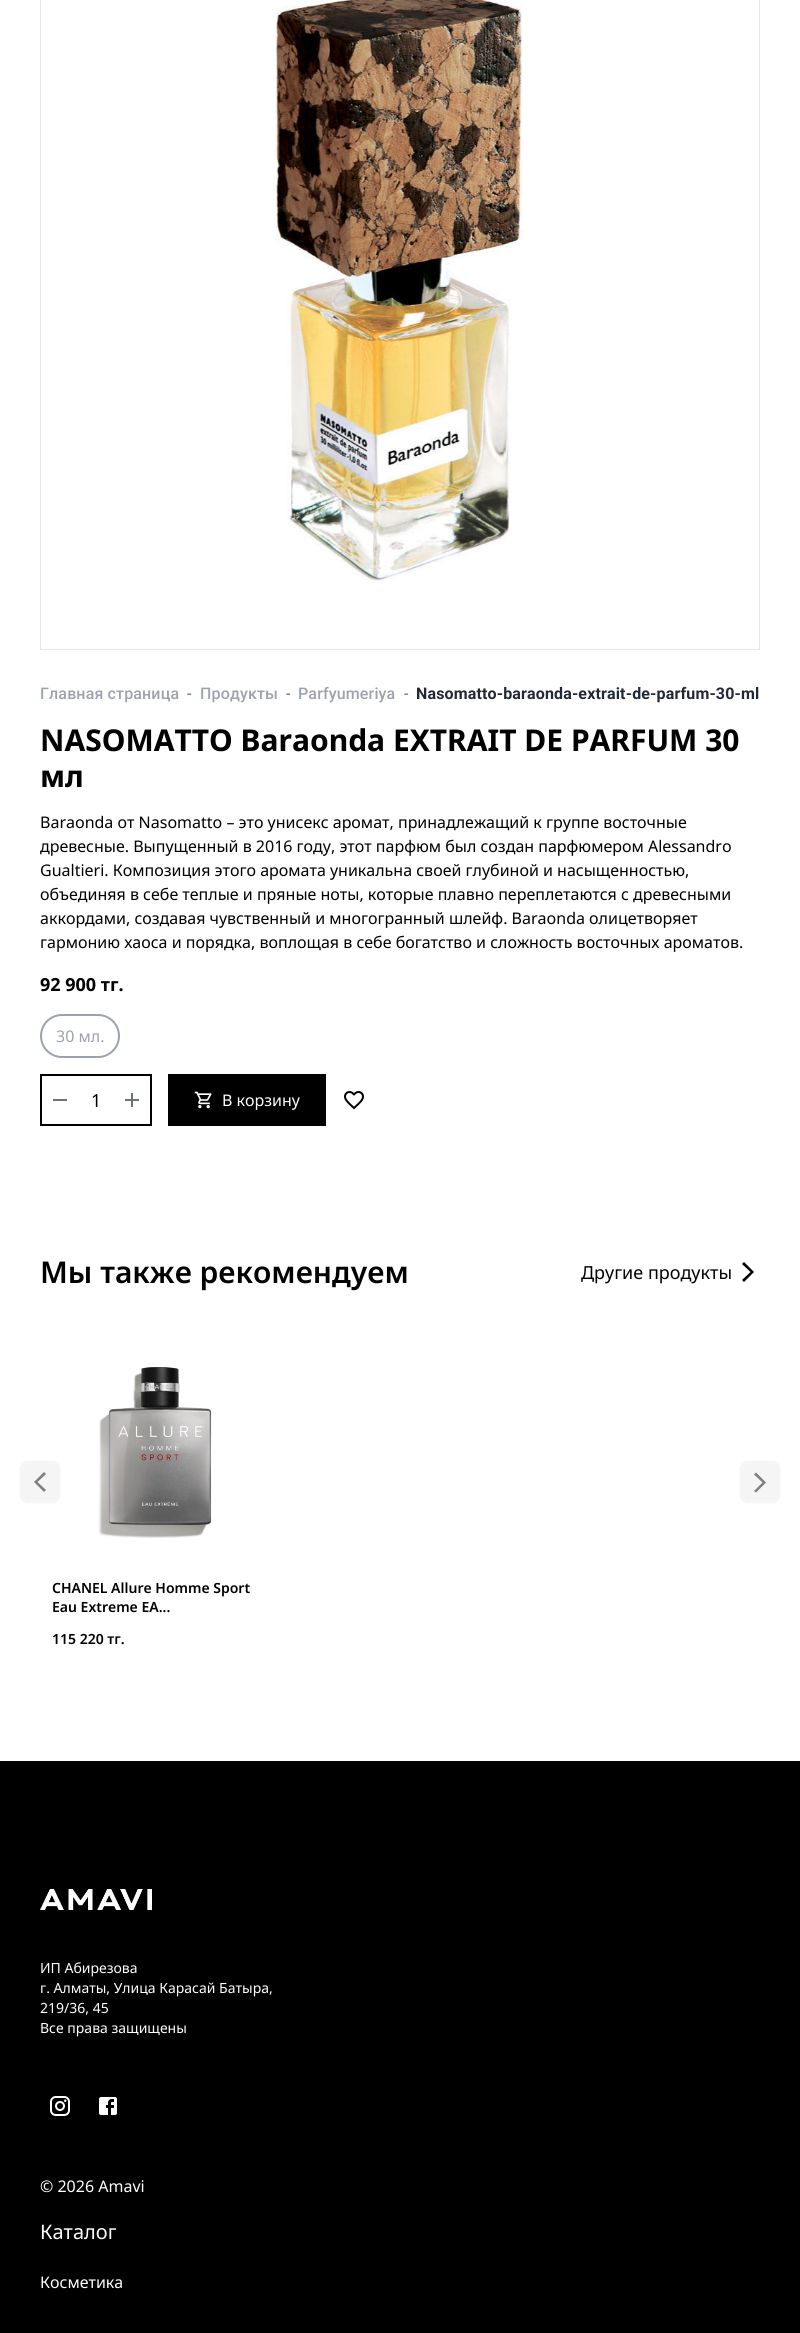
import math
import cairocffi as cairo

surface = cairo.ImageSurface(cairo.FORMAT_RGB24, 800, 2333)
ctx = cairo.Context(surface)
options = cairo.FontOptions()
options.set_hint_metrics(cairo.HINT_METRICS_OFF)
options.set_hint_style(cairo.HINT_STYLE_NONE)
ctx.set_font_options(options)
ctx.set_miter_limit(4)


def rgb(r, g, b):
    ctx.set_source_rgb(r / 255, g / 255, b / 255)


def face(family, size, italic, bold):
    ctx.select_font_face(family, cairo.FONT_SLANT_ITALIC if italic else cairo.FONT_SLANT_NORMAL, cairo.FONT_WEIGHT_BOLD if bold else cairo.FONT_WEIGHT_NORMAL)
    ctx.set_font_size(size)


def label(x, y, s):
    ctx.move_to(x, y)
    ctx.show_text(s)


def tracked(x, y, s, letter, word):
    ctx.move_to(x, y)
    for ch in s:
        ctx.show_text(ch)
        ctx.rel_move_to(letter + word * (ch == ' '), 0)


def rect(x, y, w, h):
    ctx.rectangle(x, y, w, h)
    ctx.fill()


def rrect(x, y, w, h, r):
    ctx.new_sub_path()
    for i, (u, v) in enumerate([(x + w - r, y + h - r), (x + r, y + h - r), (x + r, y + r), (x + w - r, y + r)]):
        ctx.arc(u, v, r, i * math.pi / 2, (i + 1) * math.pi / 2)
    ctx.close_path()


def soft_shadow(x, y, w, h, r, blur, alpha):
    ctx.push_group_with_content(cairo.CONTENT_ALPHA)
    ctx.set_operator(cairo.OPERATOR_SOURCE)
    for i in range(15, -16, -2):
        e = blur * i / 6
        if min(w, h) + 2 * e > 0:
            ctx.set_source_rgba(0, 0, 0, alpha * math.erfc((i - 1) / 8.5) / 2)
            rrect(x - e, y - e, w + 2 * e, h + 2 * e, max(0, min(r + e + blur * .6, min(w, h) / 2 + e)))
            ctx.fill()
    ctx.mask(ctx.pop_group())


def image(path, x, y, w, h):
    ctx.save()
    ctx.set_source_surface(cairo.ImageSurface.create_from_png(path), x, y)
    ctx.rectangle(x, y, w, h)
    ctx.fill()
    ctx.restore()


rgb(255, 255, 255)
ctx.paint()
ctx.rectangle(40.5, -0.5, 719, 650)
rgb(229, 231, 235)
ctx.set_line_width(1)
ctx.stroke()
image('image0.png', 275, 0, 248, 581)
face('Roboto Medium', 16, 0, 0)
rgb(156, 163, 175)
tracked(40, 699, 'Главная страница', 0.15, 0)
face('Roboto', 16, 0, 0)
rgb(102, 102, 102)
tracked(187, 699, '-', 0.15, 0)
face('Roboto Medium', 16, 0, 0)
rgb(156, 163, 175)
tracked(200, 699, 'Продукты', 0.15, 0)
face('Roboto', 16, 0, 0)
rgb(102, 102, 102)
tracked(286, 699, '-', 0.15, 0)
face('Roboto Medium', 16, 0, 0)
rgb(156, 163, 175)
tracked(298, 699, 'Parfyumeriya', 0.15, 0)
face('Roboto', 16, 0, 0)
rgb(102, 102, 102)
tracked(404, 699, '-', 0.15, 0)
face('Roboto', 16, 0, 1)
rgb(31, 41, 55)
tracked(416, 699, 'Nasomatto-baraonda-extrait-de-parfum-30-ml', 0.15, 0)
face('Noto Sans', 30, 0, 1)
rgb(0, 0, 0)
label(40, 751, 'NASOMATTO Baraonda EXTRAIT DE PARFUM 30')
label(40, 787, 'мл')
face('Noto Sans', 16, 0, 0)
label(40, 828, 'Baraonda от Nasomatto – это унисекс аромат, принадлежащий к группе восточные')
label(40, 852, 'древесные. Выпущенный в 2016 году, этот парфюм был создан парфюмером Alessandro')
label(40, 876, 'Gualtieri. Композиция этого аромата уникальна своей глубиной и насыщенностью,')
label(40, 900, 'объединяя в себе теплые и пряные ноты, которые плавно переплетаются с древесными')
label(40, 924, 'аккордами, создавая чувственный и многогранный шлейф. Baraonda олицетворяет')
label(40, 948, 'гармонию хаоса и порядка, воплощая в себе богатство и сложность восточных ароматов.')
face('Noto Sans', 18, 0, 1)
label(40, 991, '92 900 тг.')
rrect(41, 1015, 78, 42, 21)
rgb(156, 163, 175)
ctx.set_line_width(2)
ctx.stroke()
face('Noto Sans', 16, 0, 0)
label(56, 1042, '30 мл.')
ctx.rectangle(41, 1075, 110, 50)
rgb(0, 0, 0)
ctx.stroke()
rgb(107, 114, 128)
rect(53, 1099, 14, 2)
face('Noto Sans', 18, 0, 0)
rgb(0, 0, 0)
label(91, 1107, '1')
image('image1.png', 125, 1093, 14, 14)
rect(168, 1074, 158, 52)
image('image2.png', 194, 1091, 18, 18)
face('Noto Sans', 16, 0, 0)
rgb(255, 255, 255)
label(222, 1106, 'В корзину')
image('image3.png', 344, 1091, 20, 19)
face('Noto Sans SemiBold', 30, 0, 0)
rgb(0, 0, 0)
label(40, 1283, 'Мы также рекомендуем')
face('Noto Sans', 18, 0, 0)
label(581, 1279, 'Другие продукты')
ctx.new_path()
ctx.move_to(742, 1280)
ctx.line_to(744, 1282)
ctx.line_to(754, 1272)
ctx.line_to(744, 1262)
ctx.line_to(742, 1264)
ctx.line_to(750.5, 1272)
ctx.close_path()
ctx.fill()
rgb(0, 0, 0)
soft_shadow(20, 1462, 40, 41, 8, 1, 0.05)
rgb(245, 245, 245)
rrect(20, 1461, 40, 41, 8)
ctx.fill()
rgb(128, 128, 128)
ctx.new_path()
ctx.move_to(46, 1474)
ctx.line_to(44, 1472)
ctx.line_to(34, 1482)
ctx.line_to(44, 1492)
ctx.line_to(46, 1490)
ctx.line_to(37.5, 1482)
ctx.close_path()
ctx.fill()
rgb(0, 0, 0)
soft_shadow(740, 1462, 40, 41, 8, 1, 0.05)
rgb(245, 245, 245)
rrect(740, 1461, 40, 41, 8)
ctx.fill()
rgb(128, 128, 128)
ctx.new_path()
ctx.move_to(754, 1491)
ctx.line_to(756, 1492.5)
ctx.line_to(766, 1482.5)
ctx.line_to(756, 1472.5)
ctx.line_to(754, 1474.5)
ctx.line_to(762.5, 1482.5)
ctx.close_path()
ctx.fill()
image('image4.png', 98, 1367, 114, 171)
face('Noto Sans SemiBold', 14, 0, 0)
rgb(0, 0, 0)
label(52, 1593, 'CHANEL Allure Homme Sport')
label(52, 1612, 'Eau Extreme EA...')
label(52, 1644, '115 220 тг.')
rect(0, 1761, 800, 572)
image('image5.png', 40, 1889, 112, 21)
face('Noto Sans', 14, 0, 0)
rgb(255, 255, 255)
label(40, 1973, 'ИП Абирезова')
label(40, 1993, 'г. Алматы, Улица Карасай Батыра,')
label(40, 2013, '219/36, 45')
label(40, 2033, 'Все права защищены')
image('image6.png', 50, 2096, 20, 20)
image('image7.png', 99, 2097, 18, 18)
face('Noto Sans', 16, 0, 0)
label(40, 2192, '© 2026 Amavi')
face('Noto Sans', 20, 0, 0)
label(40, 2239, 'Каталог')
face('Noto Sans', 16, 0, 0)
label(40, 2288, 'Косметика')
surface.write_to_png('render.png')
